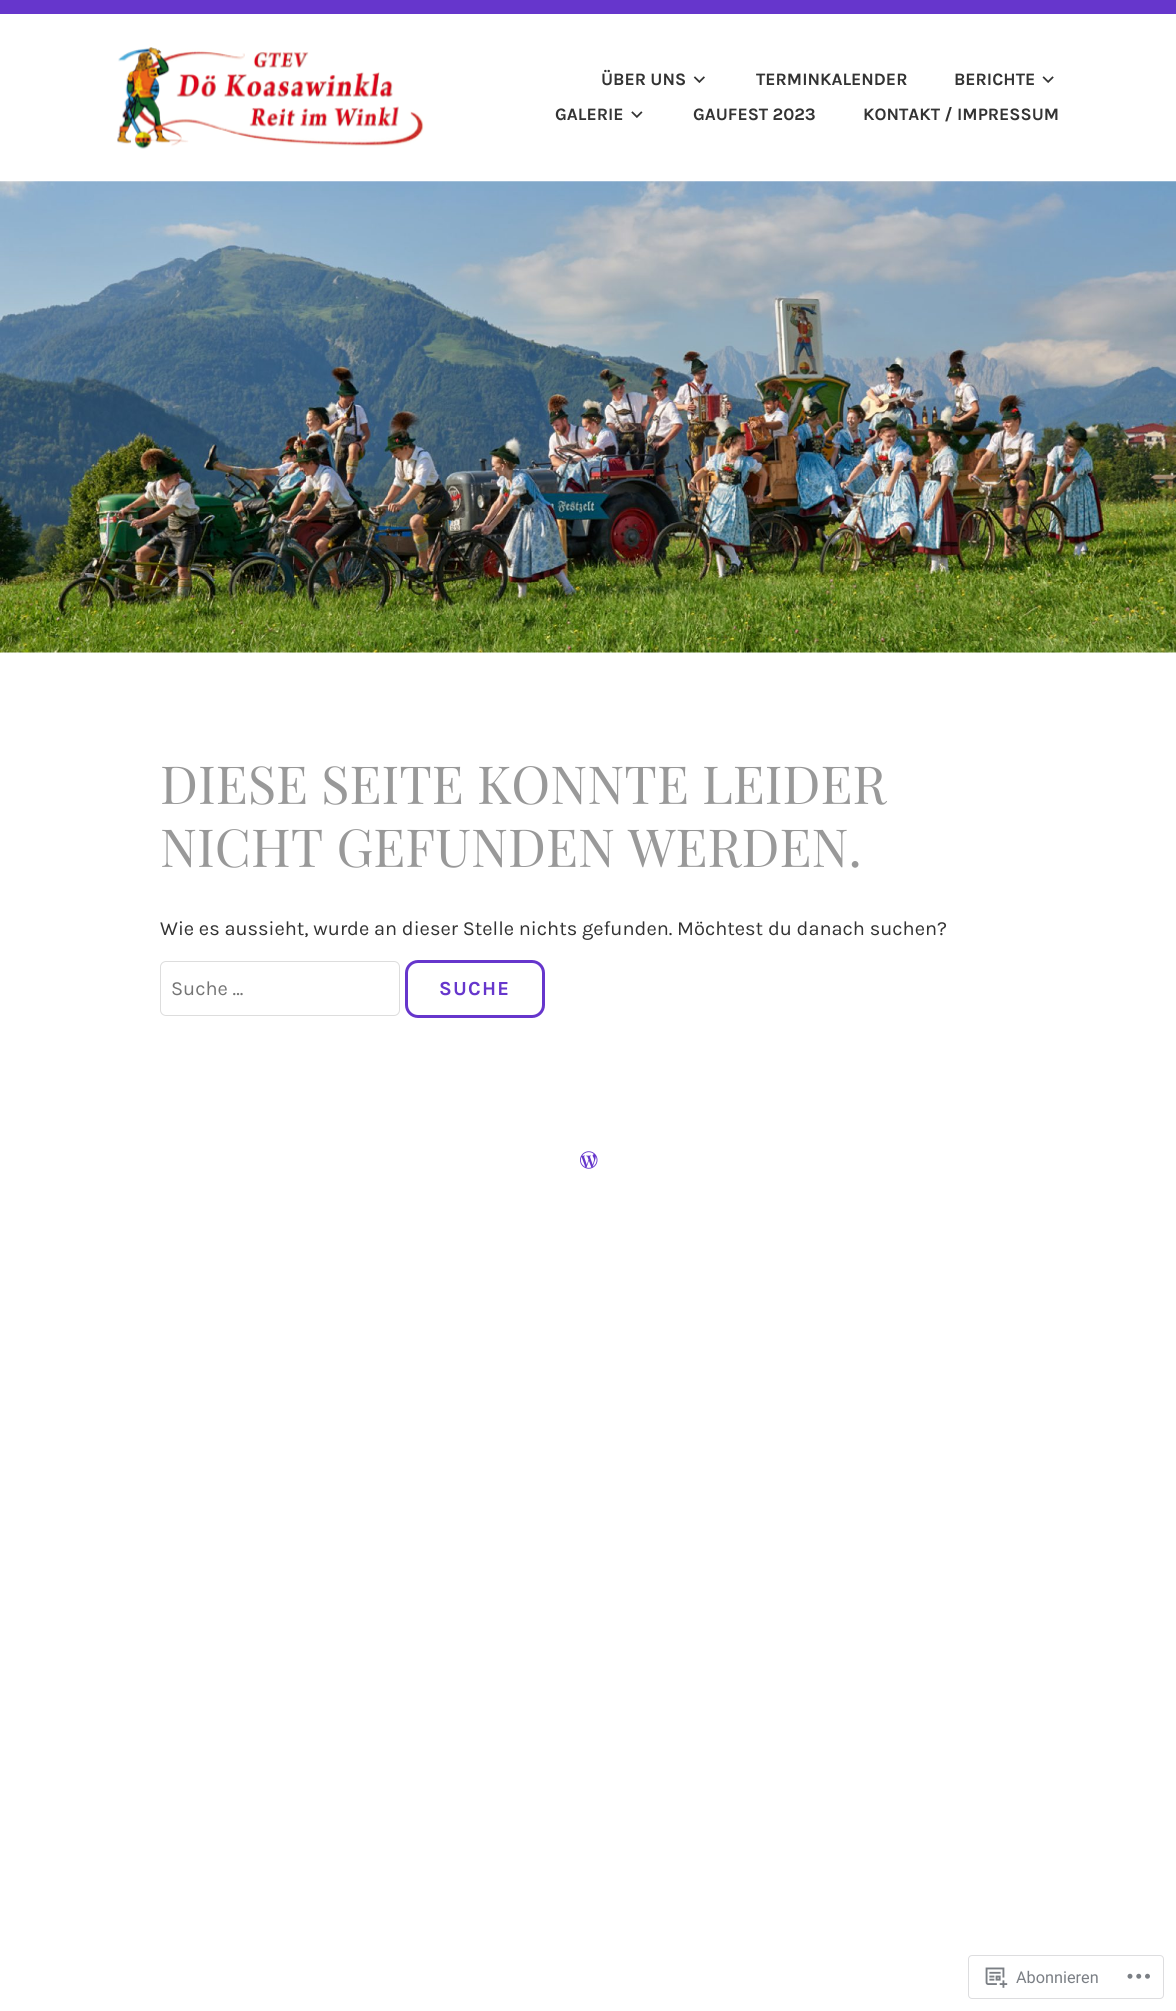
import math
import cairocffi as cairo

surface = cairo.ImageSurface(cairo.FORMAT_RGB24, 1176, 2011)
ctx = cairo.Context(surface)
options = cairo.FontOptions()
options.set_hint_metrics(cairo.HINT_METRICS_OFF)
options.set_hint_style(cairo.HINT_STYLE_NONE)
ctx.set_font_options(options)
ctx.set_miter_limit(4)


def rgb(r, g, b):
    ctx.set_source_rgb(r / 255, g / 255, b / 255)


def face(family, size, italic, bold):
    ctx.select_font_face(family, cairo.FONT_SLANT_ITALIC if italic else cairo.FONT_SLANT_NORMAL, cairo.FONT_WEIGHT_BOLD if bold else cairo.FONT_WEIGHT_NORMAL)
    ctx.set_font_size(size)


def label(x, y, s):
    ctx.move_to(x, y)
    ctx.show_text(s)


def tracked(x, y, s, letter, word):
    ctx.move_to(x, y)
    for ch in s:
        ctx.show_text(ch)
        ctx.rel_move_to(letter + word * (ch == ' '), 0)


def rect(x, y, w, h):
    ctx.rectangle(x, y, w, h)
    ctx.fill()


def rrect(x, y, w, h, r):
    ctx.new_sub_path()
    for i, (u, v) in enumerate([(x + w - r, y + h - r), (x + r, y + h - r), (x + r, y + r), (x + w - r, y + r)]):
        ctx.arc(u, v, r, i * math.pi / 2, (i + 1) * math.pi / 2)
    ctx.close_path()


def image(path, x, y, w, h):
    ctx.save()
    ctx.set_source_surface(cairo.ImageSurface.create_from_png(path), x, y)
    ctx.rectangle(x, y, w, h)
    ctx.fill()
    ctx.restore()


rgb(255, 255, 255)
ctx.paint()
rgb(102, 54, 204)
rect(0, 0, 1176, 14)
image('image0.png', 117, 47, 307, 102)
face('Karla', 17.5, 0, 1)
rgb(51, 51, 51)
label(601, 85, 'ÜBER UNS')
image('image1.png', 693, 76, 12, 7)
label(756, 85, 'TERMINKALENDER')
label(954, 85, 'BERICHTE')
image('image2.png', 1042, 76, 12, 7)
label(555, 120, 'GALERIE')
image('image3.png', 631, 111, 12, 7)
label(693, 120, 'GAUFEST 2023')
label(863, 120, 'KONTAKT / IMPRESSUM')
image('image4.png', 0, 181, 1176, 472)
face('Playfair Display', 52.5, 0, 0)
rgb(153, 153, 153)
label(160, 804, 'DIESE SEITE KONNTE LEIDER')
label(160, 867, 'NICHT GEFUNDEN WERDEN.')
face('Karla', 20, 0, 0)
rgb(51, 51, 51)
label(160, 935, 'Wie es aussieht, wurde an dieser Stelle nichts gefunden. Möchtest du danach suchen?')
rrect(160.5, 961.5, 239, 54, 5.5)
rgb(221, 221, 221)
ctx.set_line_width(1)
ctx.stroke()
rgb(117, 117, 117)
label(171, 995, 'Suche …')
rrect(406.5, 961.5, 137, 55, 11.5)
rgb(102, 54, 204)
ctx.set_line_width(3)
ctx.stroke()
face('Karla', 20, 0, 1)
tracked(439, 995, 'SUCHE', 1.25, 0)
image('image5.png', 580, 1151, 18, 18)
rrect(968.5, 1955.5, 195, 43, 3.5)
rgb(221, 221, 223)
ctx.set_line_width(1)
ctx.stroke()
image('image6.png', 985, 1967, 23, 21)
face('Roboto', 16.25, 0, 0)
rgb(123, 127, 133)
label(1016, 1983, 'Abonnieren')
image('image7.png', 1127, 1973, 23, 6)
surface.write_to_png('render.png')
